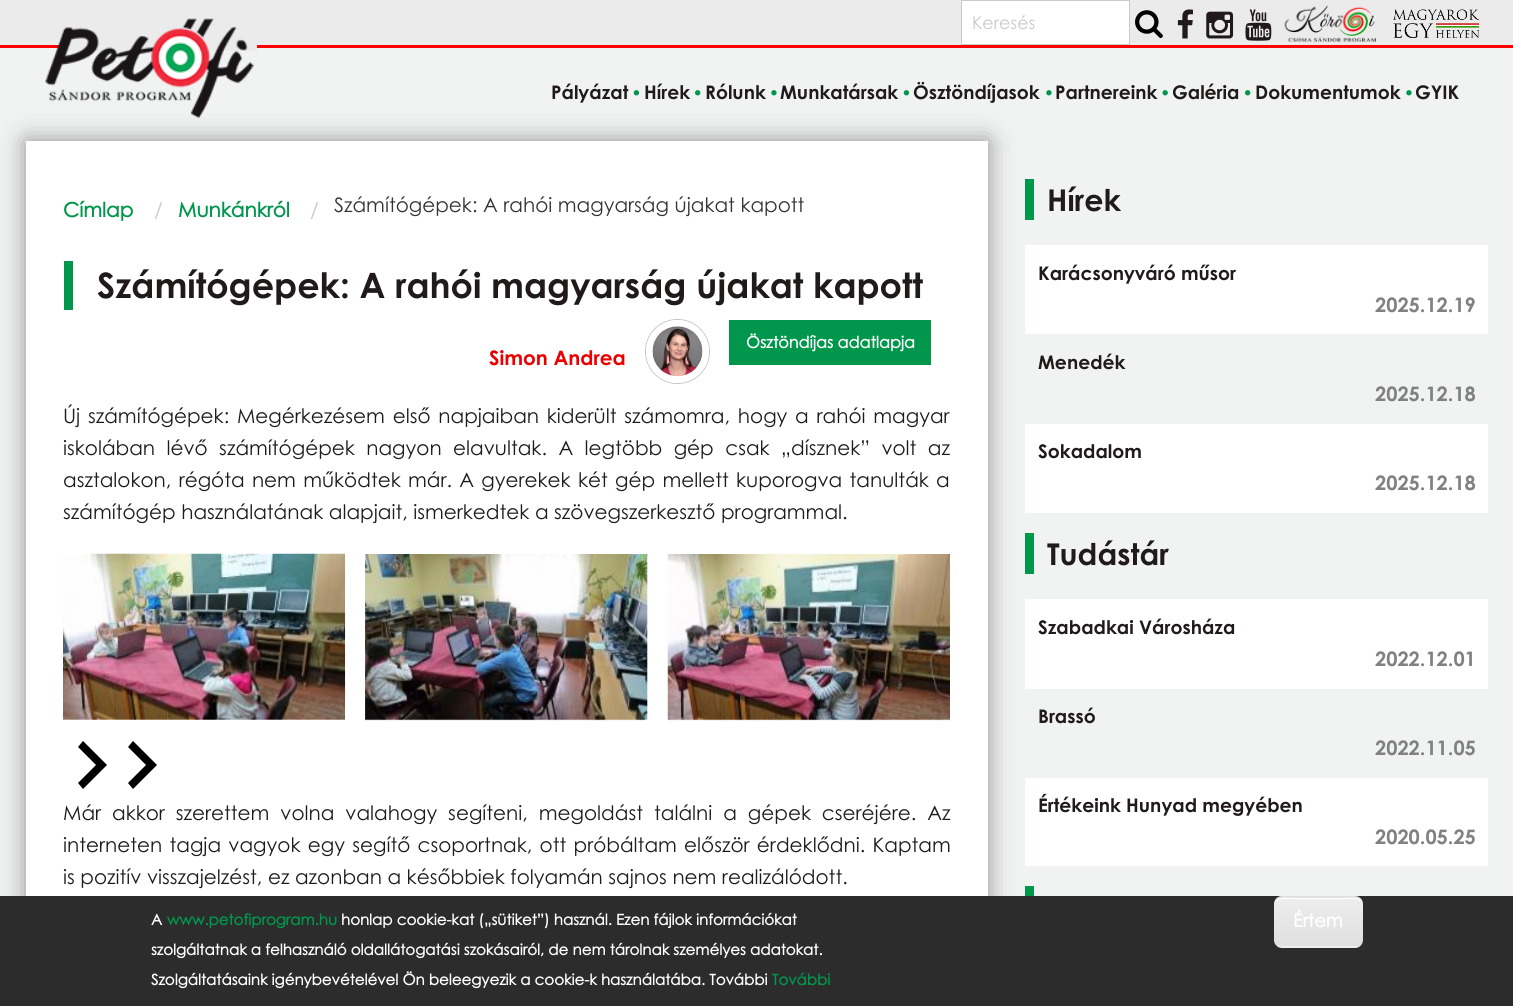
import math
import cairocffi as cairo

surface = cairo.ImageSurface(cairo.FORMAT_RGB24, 1513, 1006)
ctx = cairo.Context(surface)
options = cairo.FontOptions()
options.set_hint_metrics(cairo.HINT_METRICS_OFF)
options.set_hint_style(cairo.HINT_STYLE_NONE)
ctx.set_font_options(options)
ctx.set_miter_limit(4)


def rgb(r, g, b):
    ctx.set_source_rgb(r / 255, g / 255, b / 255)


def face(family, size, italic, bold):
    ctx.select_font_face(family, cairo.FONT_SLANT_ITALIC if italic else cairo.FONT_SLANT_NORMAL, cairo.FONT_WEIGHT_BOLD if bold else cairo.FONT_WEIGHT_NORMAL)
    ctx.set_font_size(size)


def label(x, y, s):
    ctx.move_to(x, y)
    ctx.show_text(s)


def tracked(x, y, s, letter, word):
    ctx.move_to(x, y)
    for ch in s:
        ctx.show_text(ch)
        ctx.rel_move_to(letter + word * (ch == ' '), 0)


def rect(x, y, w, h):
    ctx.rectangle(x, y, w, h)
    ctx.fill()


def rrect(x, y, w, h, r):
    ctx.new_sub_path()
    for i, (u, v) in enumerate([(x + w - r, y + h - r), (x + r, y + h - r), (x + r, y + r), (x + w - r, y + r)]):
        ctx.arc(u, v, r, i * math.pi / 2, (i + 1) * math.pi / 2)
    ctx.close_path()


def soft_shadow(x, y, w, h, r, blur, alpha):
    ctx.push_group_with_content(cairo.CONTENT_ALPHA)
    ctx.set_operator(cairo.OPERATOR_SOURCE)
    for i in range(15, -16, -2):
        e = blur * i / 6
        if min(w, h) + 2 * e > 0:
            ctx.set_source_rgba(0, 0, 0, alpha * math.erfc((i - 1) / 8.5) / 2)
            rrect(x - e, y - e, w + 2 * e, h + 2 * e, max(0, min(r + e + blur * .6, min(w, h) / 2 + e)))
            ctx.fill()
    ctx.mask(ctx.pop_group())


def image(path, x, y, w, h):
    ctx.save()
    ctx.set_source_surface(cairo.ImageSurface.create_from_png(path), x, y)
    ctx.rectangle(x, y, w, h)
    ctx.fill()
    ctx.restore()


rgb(241, 242, 242)
ctx.paint()
rgb(235, 235, 235)
rect(0, 0, 1513, 45)
rgb(255, 0, 0)
rect(0, 45, 1513, 3)
rgb(235, 235, 235)
rect(60, 45, 197, 6)
rgb(50, 50, 50)
soft_shadow(26, 141, 962, 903, 0, 12.5, 0.5)
image('image0.png', 45, 18, 209, 100)
rgb(255, 255, 255)
ctx.rectangle(961.5, 0.5, 168, 44)
ctx.fill_preserve()
rgb(202, 202, 202)
ctx.set_line_width(1)
ctx.stroke()
face('Century Gothic', 17.5, 0, 0)
label(972, 29, 'Keresés')
image('image1.png', 1135, 10, 28, 28)
image('image2.png', 1177, 9, 16, 30)
image('image3.png', 1206, 11, 28, 28)
image('image4.png', 1245, 9, 27, 32)
image('image5.png', 1284, 5, 93, 37)
image('image6.png', 1393, 9, 87, 29)
face('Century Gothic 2', 18.75, 0, 1)
rgb(32, 26, 27)
label(551, 99, 'Pályázat')
image('image7.png', 633, 90, 7, 6)
label(644, 99, 'Hírek')
image('image8.png', 695, 90, 6, 6)
label(705, 99, 'Rólunk')
image('image9.png', 771, 90, 6, 6)
label(780, 99, 'Munkatársak')
image('image7.png', 903, 90, 7, 6)
label(913, 99, 'Ösztöndíjasok')
image('image9.png', 1046, 90, 6, 6)
label(1055, 99, 'Partnereink')
image('image10.png', 1162, 90, 6, 6)
label(1172, 99, 'Galéria')
image('image8.png', 1245, 90, 6, 6)
label(1255, 99, 'Dokumentumok')
image('image9.png', 1406, 90, 6, 6)
label(1415, 99, 'GYIK')
rgb(255, 255, 255)
rect(26, 141, 962, 755)
face('Century Gothic', 20, 0, 1)
rgb(0, 151, 76)
label(63, 217, 'Címlap')
face('Century Gothic', 20, 0, 0)
rgb(202, 202, 202)
label(154, 217, '/')
face('Century Gothic', 20, 0, 1)
rgb(0, 151, 76)
label(178, 217, 'Munkánkról')
face('Century Gothic', 20, 0, 0)
rgb(202, 202, 202)
label(310, 217, '/')
rgb(51, 51, 51)
label(334, 212, 'Számítógépek: A rahói magyarság újakat kapott')
rgb(0, 151, 76)
rect(64, 261, 9, 49)
face('Century Gothic 2', 35, 0, 1)
rgb(32, 26, 27)
label(97, 298, 'Számítógépek: A rahói magyarság újakat kapott')
ctx.new_path()
ctx.arc(677.5, 351.5, 32, 0, 2 * math.pi)
rgb(196, 196, 196)
ctx.stroke()
ctx.arc(677.5, 351.5, 28.5, 0, 2 * math.pi)
rgb(255, 255, 255)
ctx.set_line_width(6)
ctx.stroke()
image('image11.png', 652, 326, 51, 51)
rgb(0, 151, 76)
rect(729, 320, 202, 45)
face('Century Gothic', 16, 0, 1)
rgb(255, 255, 255)
label(746, 348, 'Ösztöndíjas adatlapja')
face('Century Gothic 2', 20, 0, 1)
rgb(234, 0, 0)
label(489, 365, 'Simon Andrea')
face('Century Gothic', 20, 0, 0)
rgb(32, 26, 27)
tracked(63, 423, 'Új számítógépek: Megérkezésem első napjaiban kiderült számomra, hogy a rahói magyar', 0, 2.25)
tracked(63, 455, 'iskolában lévő számítógépek nagyon elavultak. A legtöbb gép csak „dísznek” volt az', 0, 5.9)
tracked(63, 487, 'asztalokon, régóta nem működtek már. A gyerekek két gép mellett kuporogva tanulták a', 0, 1.75)
label(63, 519, 'számítógép használatának alapjait, ismerkedtek a szövegszerkesztő programmal.')
image('image12.png', 63, 553, 283, 167)
image('image13.png', 365, 554, 283, 167)
image('image14.png', 667, 554, 283, 167)
rgb(0, 0, 0)
ctx.new_path()
ctx.move_to(83, 741)
ctx.line_to(78, 747)
ctx.line_to(96, 765)
ctx.line_to(78, 783)
ctx.line_to(83, 789)
ctx.line_to(107, 765)
ctx.close_path()
ctx.fill()
ctx.new_path()
ctx.move_to(133, 741)
ctx.line_to(128, 747)
ctx.line_to(146, 765)
ctx.line_to(128, 783)
ctx.line_to(133, 789)
ctx.line_to(157, 765)
ctx.close_path()
ctx.fill()
rgb(32, 26, 27)
tracked(63, 820, 'Már akkor szerettem volna valahogy segíteni, megoldást találni a gépek cseréjére. Az', 0, 5.4)
tracked(63, 852, 'interneten tagja vagyok egy segítő csoportnak, ott próbáltam először érdeklődni. Kaptam', 0, 1.75)
label(63, 884, 'is pozitív visszajelzést, ez azonban a későbbiek folyamán sajnos nem realizálódott.')
rgb(0, 151, 76)
rect(1025, 179, 9, 41)
face('Century Gothic 2', 30, 0, 1)
rgb(32, 26, 27)
label(1047, 211, 'Hírek')
rgb(255, 255, 255)
rect(1025, 245, 463, 89)
face('Century Gothic 2', 18.75, 0, 1)
rgb(32, 26, 27)
label(1038, 280, 'Karácsonyváró műsor')
face('Century Gothic 2', 20, 0, 1)
rgb(129, 129, 129)
label(1375, 312, '2025.12.19')
face('Century Gothic 2', 18.75, 0, 1)
rgb(32, 26, 27)
label(1038, 369, 'Menedék')
face('Century Gothic 2', 20, 0, 1)
rgb(129, 129, 129)
label(1375, 401, '2025.12.18')
rgb(255, 255, 255)
rect(1025, 424, 463, 89)
face('Century Gothic 2', 18.75, 0, 1)
rgb(32, 26, 27)
label(1038, 458, 'Sokadalom')
face('Century Gothic 2', 20, 0, 1)
rgb(129, 129, 129)
label(1375, 490, '2025.12.18')
rgb(0, 151, 76)
rect(1025, 533, 9, 41)
face('Century Gothic 2', 30, 0, 1)
rgb(32, 26, 27)
label(1047, 565, 'Tudástár')
rgb(255, 255, 255)
rect(1025, 599, 463, 90)
face('Century Gothic 2', 18.75, 0, 1)
rgb(32, 26, 27)
label(1038, 634, 'Szabadkai Városháza')
face('Century Gothic 2', 20, 0, 1)
rgb(129, 129, 129)
label(1375, 666, '2022.12.01')
face('Century Gothic 2', 18.75, 0, 1)
rgb(32, 26, 27)
label(1038, 723, 'Brassó')
face('Century Gothic 2', 20, 0, 1)
rgb(129, 129, 129)
label(1375, 755, '2022.11.05')
rgb(255, 255, 255)
rect(1025, 778, 463, 88)
face('Century Gothic 2', 18.75, 0, 1)
rgb(32, 26, 27)
label(1038, 812, 'Értékeink Hunyad megyében')
face('Century Gothic 2', 20, 0, 1)
rgb(129, 129, 129)
label(1375, 844, '2020.05.25')
rgb(0, 151, 76)
rect(1025, 886, 9, 10)
rgb(44, 44, 44)
rect(0, 896, 1513, 110)
face('Century Gothic', 15, 0, 1)
rgb(255, 255, 255)
label(151, 925, 'A')
rgb(0, 151, 76)
label(167, 925, 'www.petofiprogram.hu')
rgb(255, 255, 255)
label(341, 925, 'honlap cookie-kat („sütiket”) használ. Ezen fájlok információkat')
label(151, 955, 'szolgáltatnak a felhasználó oldallátogatási szokásairól, de nem tárolnak személyes adatokat.')
label(151, 985, 'Szolgáltatásaink igénybevételével Ön beleegyezik a cookie-k használatába. További')
rgb(0, 151, 76)
label(772, 985, 'További')
ctx.save()
rrect(1274, 896, 89, 52, 8)
ctx.clip()
gradient = cairo.LinearGradient(1318, 849, 1318, 898)
gradient.add_color_stop_rgba(0.05, 0.929, 0.929, 0.929, 1)
gradient.add_color_stop_rgba(1, 0.875, 0.875, 0.875, 1)
ctx.set_source(gradient)
rect(1274, 896, 89, 2)
gradient = cairo.LinearGradient(1318, 898, 1318, 946)
gradient.add_color_stop_rgba(0.05, 0.929, 0.929, 0.929, 1)
gradient.add_color_stop_rgba(1, 0.875, 0.875, 0.875, 1)
ctx.set_source(gradient)
rect(1274, 898, 89, 48)
gradient = cairo.LinearGradient(1318, 946, 1318, 995)
gradient.add_color_stop_rgba(0.05, 0.929, 0.929, 0.929, 1)
gradient.add_color_stop_rgba(1, 0.875, 0.875, 0.875, 1)
ctx.set_source(gradient)
rect(1274, 946, 89, 2)
ctx.restore()
rgb(255, 255, 255)
ctx.new_path()
ctx.move_to(1281, 899)
ctx.line_to(1355, 899)
ctx.curve_to(1358, 899, 1361, 902, 1361, 905)
ctx.curve_to(1361, 895, 1349, 898, 1343, 898)
ctx.line_to(1293, 898)
ctx.curve_to(1287, 898, 1275, 895, 1275, 905)
ctx.curve_to(1275, 902, 1278, 899, 1281, 899)
ctx.close_path()
ctx.fill()
face('Century Gothic', 18, 0, 1)
label(1293, 927, 'Értem')
surface.write_to_png('render.png')
